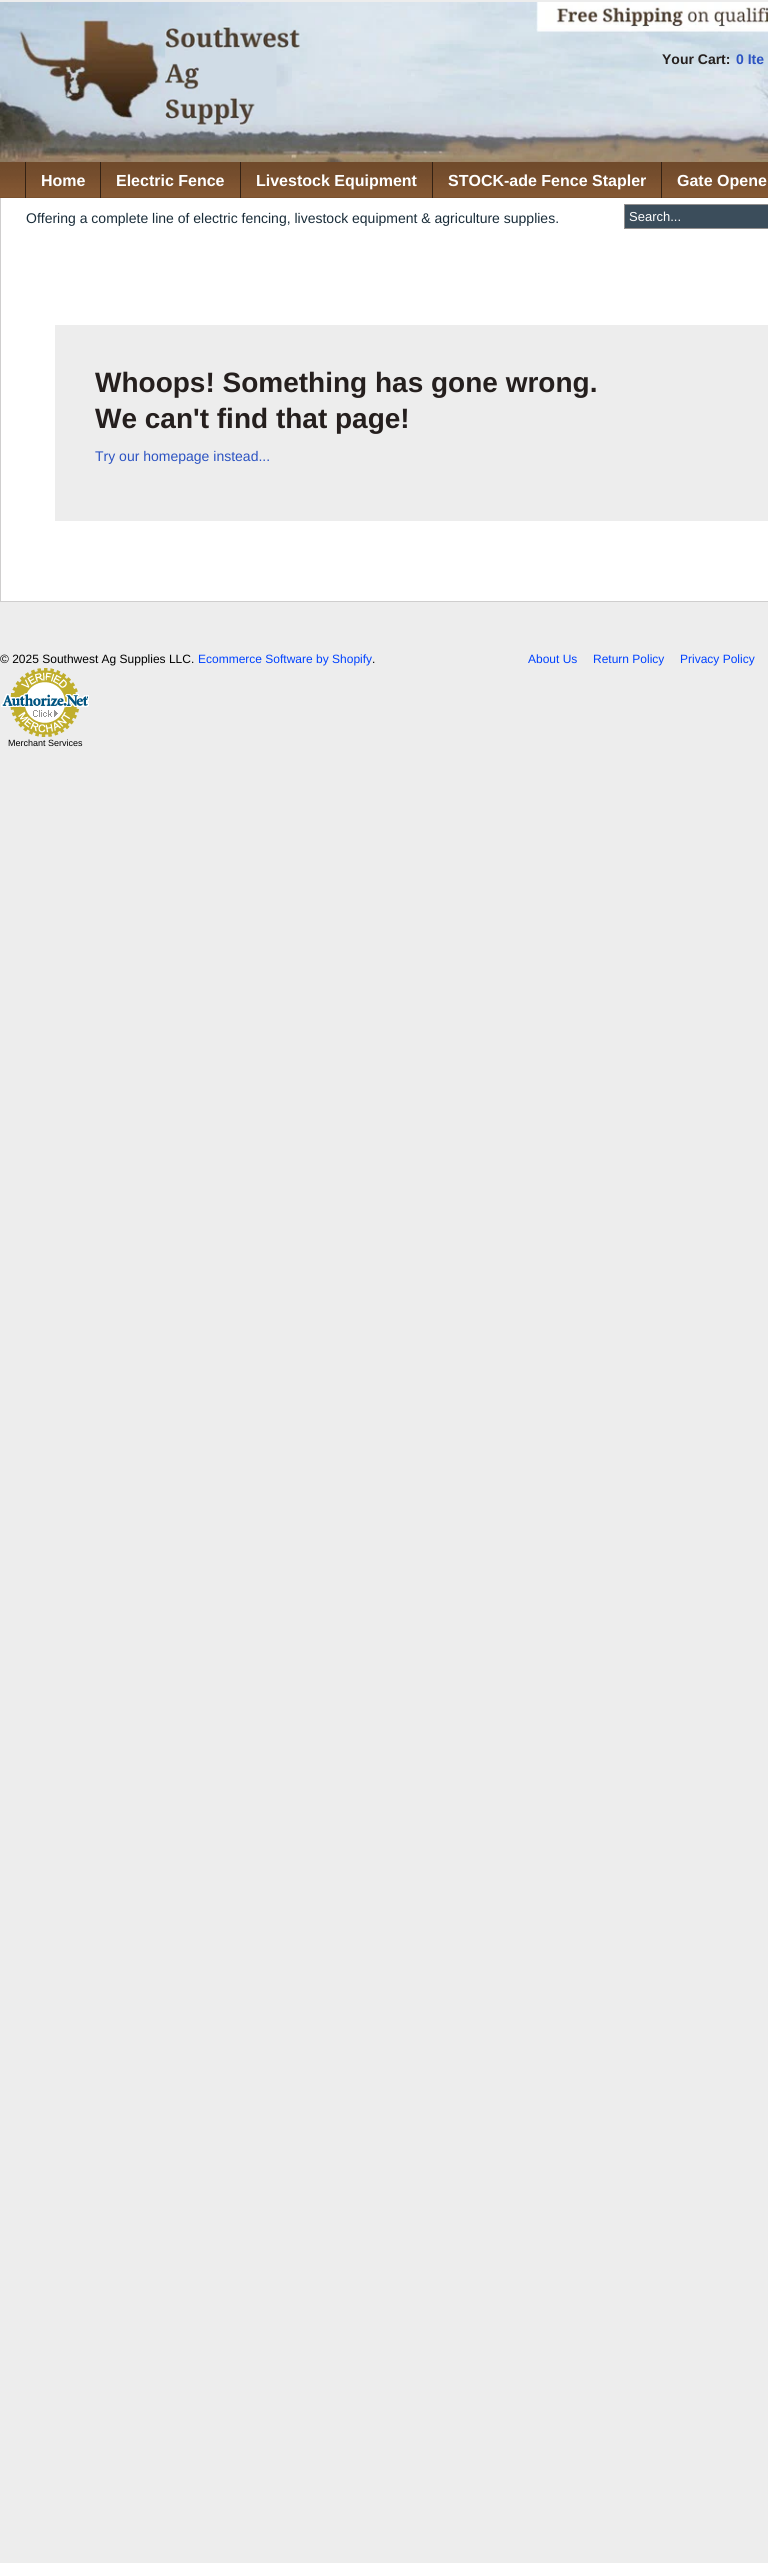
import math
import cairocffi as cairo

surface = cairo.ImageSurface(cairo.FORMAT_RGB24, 768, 2563)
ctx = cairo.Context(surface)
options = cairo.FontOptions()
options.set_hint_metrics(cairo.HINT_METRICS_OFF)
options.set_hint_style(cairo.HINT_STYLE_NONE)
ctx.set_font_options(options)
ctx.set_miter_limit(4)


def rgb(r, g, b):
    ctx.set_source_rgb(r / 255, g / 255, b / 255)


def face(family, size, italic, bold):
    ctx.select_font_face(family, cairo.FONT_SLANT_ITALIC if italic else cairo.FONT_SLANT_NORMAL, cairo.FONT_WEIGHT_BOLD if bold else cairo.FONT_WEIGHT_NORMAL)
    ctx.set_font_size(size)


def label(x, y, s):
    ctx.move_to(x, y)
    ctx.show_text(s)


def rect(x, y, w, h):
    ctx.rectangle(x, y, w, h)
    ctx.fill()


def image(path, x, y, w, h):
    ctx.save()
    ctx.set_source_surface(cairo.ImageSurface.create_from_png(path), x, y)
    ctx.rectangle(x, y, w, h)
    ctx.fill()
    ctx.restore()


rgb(237, 237, 237)
ctx.paint()
image('image0.png', 0, 2, 768, 160)
face('Liberation Sans', 14, 0, 1)
rgb(37, 31, 30)
label(662, 64, 'Your Cart:')
rgb(44, 83, 194)
label(736, 64, '0 Ite')
rgb(122, 81, 47)
rect(0, 197, 768, 1)
image('image1.png', 0, 162, 768, 35)
rgb(52, 34, 20)
rect(25, 162, 1, 36)
rect(100, 162, 1, 36)
face('Liberation Sans', 16, 0, 1)
rgb(255, 255, 255)
label(41, 186, 'Home')
rgb(52, 34, 20)
rect(240, 162, 1, 36)
rgb(255, 255, 255)
label(116, 186, 'Electric Fence')
rgb(52, 34, 20)
rect(432, 162, 1, 36)
rgb(255, 255, 255)
label(256, 186, 'Livestock Equipment')
rgb(52, 34, 20)
rect(661, 162, 1, 36)
rgb(255, 255, 255)
label(448, 186, 'STOCK-ade Fence Stapler')
label(677, 186, 'Gate Opene')
rect(1, 198, 767, 403)
rgb(207, 206, 206)
rect(0, 198, 1, 37)
face('Liberation Sans', 14, 0, 0)
rgb(25, 44, 57)
label(26, 223, 'Offering a complete line of electric fencing, livestock equipment & agriculture supplies.')
rgb(59, 77, 91)
ctx.rectangle(624.5, 204.5, 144, 24)
ctx.fill_preserve()
rgb(147, 144, 143)
ctx.set_line_width(1)
ctx.stroke()
face('Liberation Sans', 13, 0, 0)
rgb(255, 255, 255)
label(629, 221, 'Search...')
rgb(207, 206, 206)
rect(0, 601, 768, 1)
rect(0, 235, 1, 367)
rgb(237, 237, 237)
rect(55, 325, 713, 196)
face('Liberation Sans', 28, 0, 1)
rgb(37, 31, 30)
label(95, 392, 'Whoops! Something has gone wrong.')
label(95, 428, 'We can\'t find that page!')
face('Liberation Sans', 14, 0, 0)
rgb(44, 83, 194)
label(95, 461, 'Try our homepage instead...')
face('Liberation Sans', 12, 0, 0)
rgb(0, 0, 0)
label(0, 663, '© 2025 Southwest Ag Supplies LLC.')
rgb(0, 66, 255)
label(198, 663, 'Ecommerce Software by Shopify')
rgb(0, 0, 0)
label(372, 663, '.')
rgb(0, 66, 255)
label(528, 663, 'About Us')
label(593, 663, 'Return Policy')
label(680, 663, 'Privacy Policy')
image('image2.png', 1, 668, 88, 69)
face('Liberation Sans', 9, 0, 0)
rgb(0, 0, 0)
label(8, 746, 'Merchant Services')
surface.write_to_png('render.png')
